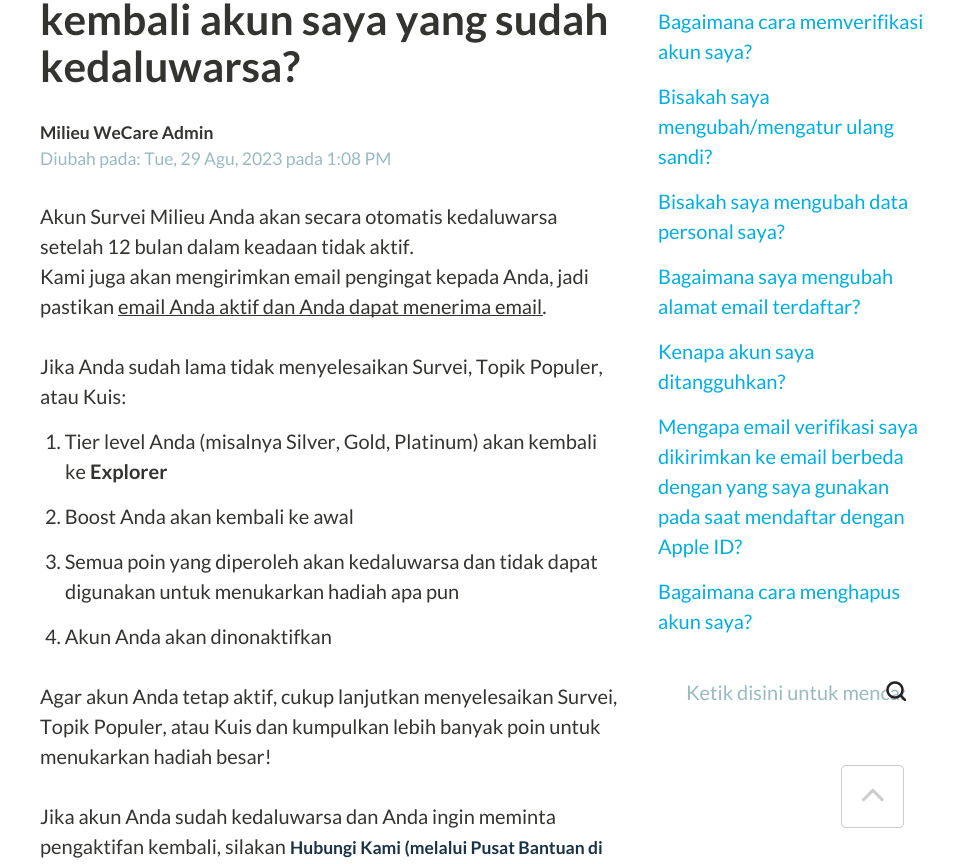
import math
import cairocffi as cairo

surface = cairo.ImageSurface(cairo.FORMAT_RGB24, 966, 864)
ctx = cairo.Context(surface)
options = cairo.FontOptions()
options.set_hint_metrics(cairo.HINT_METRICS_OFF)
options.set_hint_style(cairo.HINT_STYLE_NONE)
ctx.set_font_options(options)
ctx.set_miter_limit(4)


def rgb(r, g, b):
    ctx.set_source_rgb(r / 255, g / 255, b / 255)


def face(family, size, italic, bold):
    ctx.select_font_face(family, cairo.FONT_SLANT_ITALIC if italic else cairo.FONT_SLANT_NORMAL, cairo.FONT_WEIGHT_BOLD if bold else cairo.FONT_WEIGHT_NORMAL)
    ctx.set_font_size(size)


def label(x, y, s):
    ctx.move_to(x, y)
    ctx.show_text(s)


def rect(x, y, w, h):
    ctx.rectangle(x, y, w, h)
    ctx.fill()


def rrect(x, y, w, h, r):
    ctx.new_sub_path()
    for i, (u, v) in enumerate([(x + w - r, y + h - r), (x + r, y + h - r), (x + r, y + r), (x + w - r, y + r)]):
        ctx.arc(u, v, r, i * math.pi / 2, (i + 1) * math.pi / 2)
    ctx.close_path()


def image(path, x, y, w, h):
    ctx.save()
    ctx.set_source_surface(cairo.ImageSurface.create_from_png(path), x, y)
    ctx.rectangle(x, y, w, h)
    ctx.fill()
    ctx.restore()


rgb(255, 255, 255)
ctx.paint()
face('Lato', 42.5, 0, 1)
rgb(51, 51, 48)
label(40, 35, 'kembali akun saya yang sudah')
label(40, 82, 'kedaluwarsa?')
face('Lato', 17.5, 0, 1)
label(40, 139, 'Milieu WeCare Admin')
face('Lato', 17.5, 0, 0)
rgb(152, 186, 195)
label(40, 165, 'Diubah pada: Tue, 29 Agu, 2023 pada 1:08 PM')
face('Lato', 20, 0, 0)
rgb(51, 51, 48)
label(40, 224, 'Akun Survei Milieu Anda akan secara otomatis kedaluwarsa')
label(40, 254, 'setelah 12 bulan dalam keadaan tidak aktif.')
label(40, 284, 'Kami juga akan mengirimkan email pengingat kepada Anda, jadi')
label(40, 314, 'pastikan')
rect(118, 315, 425, 1)
label(118, 314, 'email Anda aktif dan Anda dapat menerima email.')
label(40, 374, 'Jika Anda sudah lama tidak menyelesaikan Survei, Topik Populer,')
label(40, 404, 'atau Kuis:')
label(45, 449, '1. Tier level Anda (misalnya Silver, Gold, Platinum) akan kembali')
label(65, 479, 'ke')
face('Lato', 20, 0, 1)
label(90, 479, 'Explorer')
face('Lato', 20, 0, 0)
label(45, 524, '2. Boost Anda akan kembali ke awal')
label(45, 569, '3. Semua poin yang diperoleh akan kedaluwarsa dan tidak dapat')
label(65, 599, 'digunakan untuk menukarkan hadiah apa pun')
label(45, 644, '4. Akun Anda akan dinonaktifkan')
label(40, 704, 'Agar akun Anda tetap aktif, cukup lanjutkan menyelesaikan Survei,')
label(40, 734, 'Topik Populer, atau Kuis dan kumpulkan lebih banyak poin untuk')
label(40, 764, 'menukarkan hadiah besar!')
label(40, 824, 'Jika akun Anda sudah kedaluwarsa dan Anda ingin meminta')
label(40, 854, 'pengaktifan kembali, silakan')
face('Lato', 17.5, 0, 1)
rgb(24, 50, 71)
label(290, 854, 'Hubungi Kami (melalui Pusat Bantuan di')
face('Lato', 20, 0, 0)
rgb(0, 174, 226)
label(658, 29, 'Bagaimana cara memverifikasi')
label(658, 59, 'akun saya?')
label(658, 104, 'Bisakah saya')
label(658, 134, 'mengubah/mengatur ulang')
label(658, 164, 'sandi?')
label(658, 209, 'Bisakah saya mengubah data')
label(658, 239, 'personal saya?')
label(658, 284, 'Bagaimana saya mengubah')
label(658, 314, 'alamat email terdaftar?')
label(658, 359, 'Kenapa akun saya')
label(658, 389, 'ditangguhkan?')
label(658, 434, 'Mengapa email verifikasi saya')
label(658, 464, 'dikirimkan ke email berbeda')
label(658, 494, 'dengan yang saya gunakan')
label(658, 524, 'pada saat mendaftar dengan')
label(658, 554, 'Apple ID?')
label(658, 599, 'Bagaimana cara menghapus')
label(658, 629, 'akun saya?')
ctx.save()
ctx.rectangle(679, 680, 226, 24)
ctx.clip()
rgb(152, 186, 195)
label(686, 700, 'Ketik disini untuk mencar')
ctx.restore()
image('image0.png', 886, 681, 20, 20)
rrect(841.5, 765.5, 62, 62, 4.5)
rgb(204, 204, 204)
ctx.set_line_width(1)
ctx.stroke()
image('image1.png', 861, 788, 23, 14)
surface.write_to_png('render.png')
